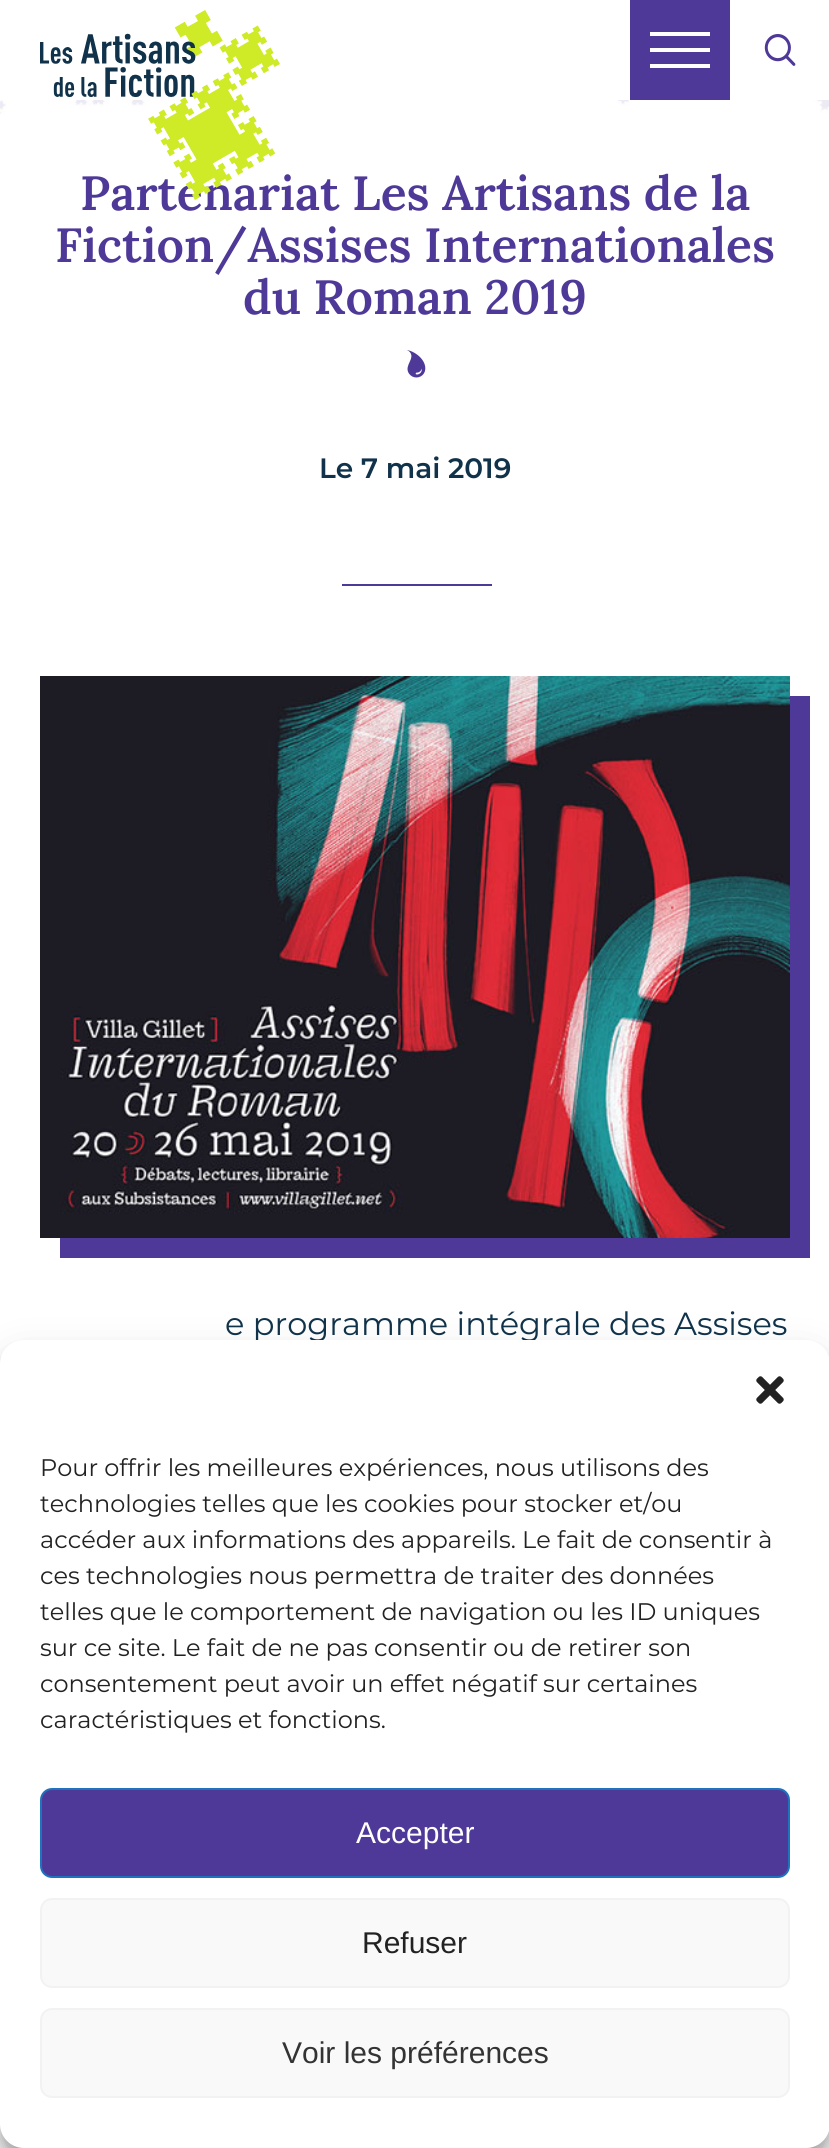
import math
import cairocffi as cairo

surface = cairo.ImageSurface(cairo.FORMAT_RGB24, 829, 2148)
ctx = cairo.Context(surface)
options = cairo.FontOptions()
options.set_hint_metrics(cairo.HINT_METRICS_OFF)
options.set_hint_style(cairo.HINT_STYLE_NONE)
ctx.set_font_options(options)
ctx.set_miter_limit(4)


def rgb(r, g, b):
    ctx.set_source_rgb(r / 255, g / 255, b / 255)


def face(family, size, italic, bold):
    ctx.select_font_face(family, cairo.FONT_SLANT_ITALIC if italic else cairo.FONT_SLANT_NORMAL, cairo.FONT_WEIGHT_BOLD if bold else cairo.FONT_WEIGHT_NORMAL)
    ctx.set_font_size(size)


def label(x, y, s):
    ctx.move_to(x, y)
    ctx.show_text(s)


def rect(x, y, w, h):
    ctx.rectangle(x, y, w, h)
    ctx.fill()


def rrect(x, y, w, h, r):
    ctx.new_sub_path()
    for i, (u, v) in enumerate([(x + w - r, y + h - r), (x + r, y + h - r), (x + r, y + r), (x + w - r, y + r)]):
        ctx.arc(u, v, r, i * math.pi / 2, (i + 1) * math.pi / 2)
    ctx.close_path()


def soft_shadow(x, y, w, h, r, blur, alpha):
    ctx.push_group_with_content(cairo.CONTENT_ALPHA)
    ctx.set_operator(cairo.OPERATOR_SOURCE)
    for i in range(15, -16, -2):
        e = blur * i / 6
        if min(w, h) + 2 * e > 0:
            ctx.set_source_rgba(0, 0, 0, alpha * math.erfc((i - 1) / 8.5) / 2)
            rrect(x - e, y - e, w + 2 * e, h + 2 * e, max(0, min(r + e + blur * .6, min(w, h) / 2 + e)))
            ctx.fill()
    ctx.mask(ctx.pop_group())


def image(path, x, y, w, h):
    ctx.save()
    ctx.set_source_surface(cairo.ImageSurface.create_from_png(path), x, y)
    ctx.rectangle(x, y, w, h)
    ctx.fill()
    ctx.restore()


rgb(255, 255, 255)
ctx.paint()
image('image2.png', 0, 100, 829, 14)
face('Lora SemiBold', 48, 0, 0)
rgb(79, 57, 152)
label(80, 210, 'Partenariat Les Artisans de la')
image('image0.png', 40, 10, 240, 190)
rect(630, 0, 100, 100)
rgb(255, 255, 255)
rect(650, 32, 60, 4)
rect(650, 48, 60, 4)
rect(650, 64, 60, 4)
image('image1.png', 764, 34, 32, 32)
rgb(79, 57, 152)
label(55, 262, 'Fiction/Assises Internationales')
label(243, 314, 'du Roman 2019')
image('image3.png', 406, 350, 20, 28)
face('Montserrat SemiBold', 28, 0, 0)
rgb(16, 51, 75)
label(319, 478, 'Le 7 mai 2019')
rgb(79, 57, 152)
rect(342, 584, 150, 2)
ctx.new_path()
ctx.move_to(60, 1238)
ctx.line_to(60, 1258)
ctx.line_to(810, 1258)
ctx.line_to(810, 696)
ctx.line_to(790, 696)
ctx.line_to(790, 1238)
ctx.close_path()
ctx.fill()
image('image4.png', 40, 676, 750, 562)
face('Montserrat', 32, 0, 0)
rgb(16, 51, 75)
label(225, 1335, 'e programme intégrale des Assises')
rgb(0, 0, 0)
soft_shadow(0, 1352, 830, 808, 24, 6, 0.23)
soft_shadow(0, 1360, 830, 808, 24, 20, 0.19)
rgb(255, 255, 255)
rrect(0, 1340, 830, 808, 24)
ctx.fill()
image('image5.png', 756, 1376, 28, 28)
face('Montserrat', 24, 0, 0)
rgb(34, 34, 34)
label(40, 1476, 'Pour offrir les meilleures expériences, nous utilisons des')
label(40, 1512, 'technologies telles que les cookies pour stocker et/ou')
label(40, 1548, 'accéder aux informations des appareils. Le fait de consentir à')
label(40, 1584, 'ces technologies nous permettra de traiter des données')
label(40, 1620, 'telles que le comportement de navigation ou les ID uniques')
label(40, 1656, 'sur ce site. Le fait de ne pas consentir ou de retirer son')
label(40, 1692, 'consentement peut avoir un effet négatif sur certaines')
label(40, 1728, 'caractéristiques et fonctions.')
rgb(79, 57, 152)
rrect(41, 1789, 748, 88, 11)
ctx.fill_preserve()
rgb(30, 115, 190)
ctx.stroke()
face('Liberation Sans', 30, 0, 0)
rgb(255, 255, 255)
label(356, 1843, 'Accepter')
rgb(249, 249, 249)
rrect(41, 1899, 748, 88, 11)
ctx.fill_preserve()
rgb(242, 242, 242)
ctx.stroke()
rgb(34, 34, 34)
label(362, 1953, 'Refuser')
rgb(249, 249, 249)
rrect(41, 2009, 748, 88, 11)
ctx.fill_preserve()
rgb(242, 242, 242)
ctx.stroke()
rgb(51, 51, 51)
label(282, 2063, 'Voir les préférences')
surface.write_to_png('render.png')
